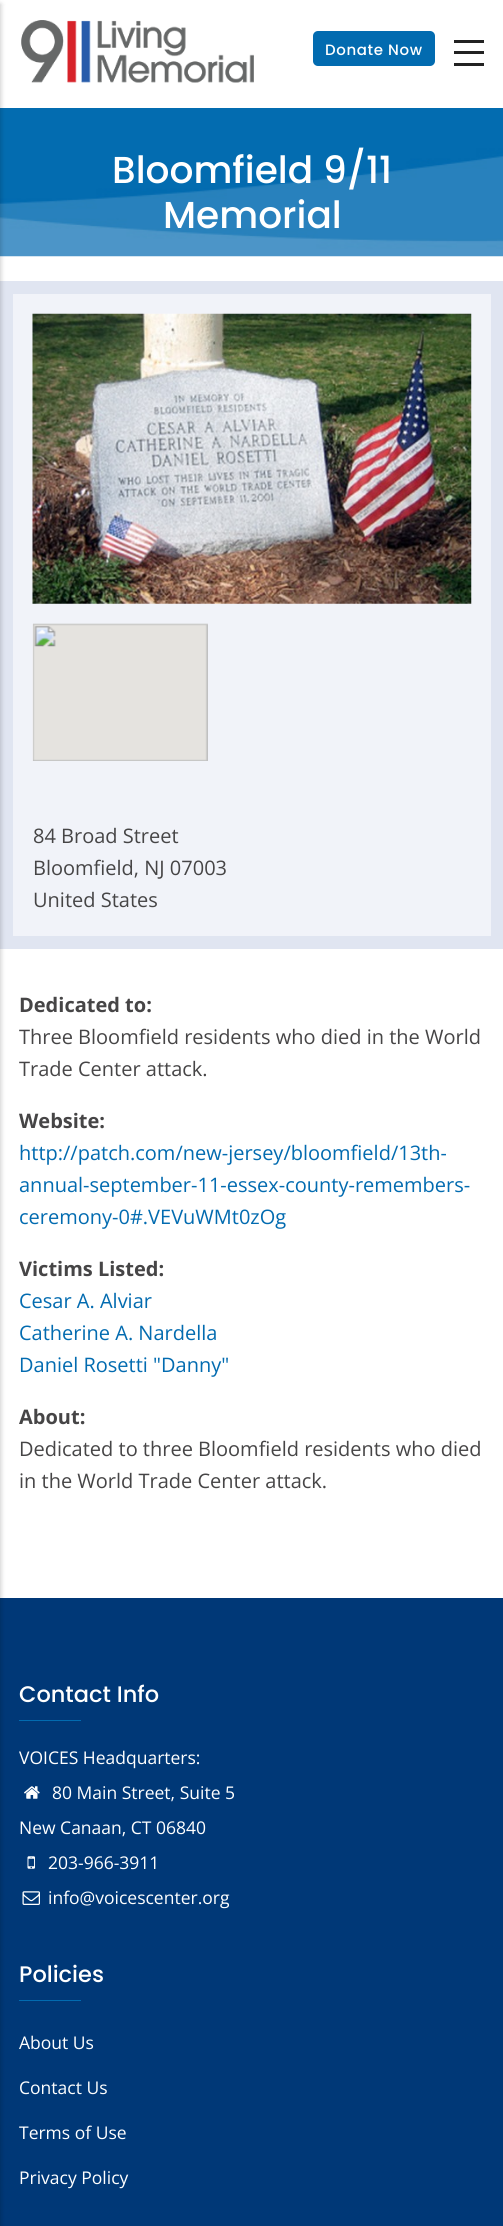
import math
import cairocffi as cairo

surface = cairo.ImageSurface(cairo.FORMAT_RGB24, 503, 2226)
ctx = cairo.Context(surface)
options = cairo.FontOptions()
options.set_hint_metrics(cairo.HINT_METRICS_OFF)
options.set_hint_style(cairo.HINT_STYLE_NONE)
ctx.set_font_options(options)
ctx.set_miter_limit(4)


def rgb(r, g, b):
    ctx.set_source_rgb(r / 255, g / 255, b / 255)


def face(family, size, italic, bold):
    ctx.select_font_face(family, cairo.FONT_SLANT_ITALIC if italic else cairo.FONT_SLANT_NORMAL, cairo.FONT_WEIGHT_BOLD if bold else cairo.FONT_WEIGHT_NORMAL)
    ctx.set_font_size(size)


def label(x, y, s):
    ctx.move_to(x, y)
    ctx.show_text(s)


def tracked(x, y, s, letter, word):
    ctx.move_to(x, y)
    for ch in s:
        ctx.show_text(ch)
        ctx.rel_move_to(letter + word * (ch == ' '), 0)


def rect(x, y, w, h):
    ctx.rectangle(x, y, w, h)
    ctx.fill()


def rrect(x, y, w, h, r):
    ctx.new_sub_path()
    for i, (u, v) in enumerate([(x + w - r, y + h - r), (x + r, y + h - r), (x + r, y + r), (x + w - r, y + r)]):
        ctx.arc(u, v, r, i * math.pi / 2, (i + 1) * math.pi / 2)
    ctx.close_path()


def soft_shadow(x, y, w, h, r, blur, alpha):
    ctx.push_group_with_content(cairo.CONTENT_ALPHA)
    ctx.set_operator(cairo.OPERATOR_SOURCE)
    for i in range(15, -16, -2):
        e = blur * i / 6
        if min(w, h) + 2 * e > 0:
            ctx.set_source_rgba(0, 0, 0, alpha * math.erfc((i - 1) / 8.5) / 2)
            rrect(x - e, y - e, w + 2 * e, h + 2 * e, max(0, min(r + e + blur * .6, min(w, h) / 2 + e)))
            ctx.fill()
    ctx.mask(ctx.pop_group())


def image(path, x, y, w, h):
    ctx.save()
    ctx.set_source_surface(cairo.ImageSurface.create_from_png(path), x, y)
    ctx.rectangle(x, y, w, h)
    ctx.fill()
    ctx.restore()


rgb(255, 255, 255)
ctx.paint()
image('image0.png', 21, 20, 233, 63)
image('image1.png', 0, 108, 503, 149)
rgb(241, 243, 249)
ctx.rectangle(6.5, 287.5, 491, 655)
ctx.fill_preserve()
rgb(224, 229, 241)
ctx.set_line_width(13)
ctx.stroke()
rgb(0, 56, 119)
rect(0, 1598, 503, 628)
rgb(0, 0, 0)
soft_shadow(-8, 4, 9, 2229, 0, 2.5, 0.2)
rgb(2, 107, 176)
rrect(313, 31, 122, 35, 5)
ctx.fill()
face('Poppins Medium', 15, 0, 0)
rgb(255, 255, 255)
tracked(325, 55, 'Donate Now', 0.6, 0)
rgb(34, 34, 34)
rect(454, 40, 30, 3)
rect(454, 51, 30, 3)
rect(454, 63, 30, 3)
face('Poppins Medium', 37.5, 0, 0)
rgb(255, 255, 255)
label(112, 183, 'Bloomfield 9/11')
label(163, 228, 'Memorial')
image('image2.png', 32, 313, 440, 291)
image('image3.png', 32, 623, 176, 138)
face('Open Sans', 20, 0, 0)
rgb(70, 69, 70)
label(33, 843, '84 Broad Street')
label(33, 875, 'Bloomfield, NJ 07003')
label(33, 907, 'United States')
face('Open Sans', 20, 0, 1)
label(19, 1012, 'Dedicated to:')
face('Open Sans', 20, 0, 0)
label(19, 1044, 'Three Bloomfield residents who died in the World')
label(19, 1076, 'Trade Center attack.')
face('Open Sans', 20, 0, 1)
label(19, 1128, 'Website:')
face('Open Sans', 20, 0, 0)
rgb(2, 107, 176)
label(19, 1160, 'http://patch.com/new-jersey/bloomfield/13th-')
label(19, 1192, 'annual-september-11-essex-county-remembers-')
label(19, 1224, 'ceremony-0#.VEVuWMt0zOg')
face('Open Sans', 20, 0, 1)
rgb(70, 69, 70)
label(19, 1276, 'Victims Listed:')
face('Open Sans', 20, 0, 0)
rgb(2, 107, 176)
label(19, 1308, 'Cesar A. Alviar')
label(19, 1340, 'Catherine A. Nardella')
label(19, 1372, 'Daniel Rosetti "Danny"')
face('Open Sans', 20, 0, 1)
rgb(70, 69, 70)
label(19, 1424, 'About:')
face('Open Sans', 20, 0, 0)
label(19, 1456, 'Dedicated to three Bloomfield residents who died')
label(19, 1488, 'in the World Trade Center attack.')
face('Poppins Medium', 22.5, 0, 0)
rgb(255, 255, 255)
label(19, 1702, 'Contact Info')
rgb(2, 107, 176)
rect(19, 1720, 62, 1)
face('Open Sans', 17.5, 0, 0)
rgb(255, 255, 255)
label(19, 1764, 'VOICES Headquarters:')
image('image4.png', 24, 1786, 16, 13)
label(52, 1799, '80 Main Street, Suite 5')
label(19, 1834, 'New Canaan, CT 06840')
image('image5.png', 27, 1856, 8, 13)
label(48, 1869, '203-966-3911')
image('image6.png', 22, 1891, 18, 14)
label(48, 1904, 'info@voicescenter.org')
face('Poppins Medium', 22.5, 0, 0)
label(19, 1982, 'Policies')
rgb(2, 107, 176)
rect(19, 2000, 62, 1)
face('Open Sans', 17.5, 0, 0)
rgb(255, 255, 255)
label(19, 2049, 'About Us')
label(19, 2094, 'Contact Us')
label(19, 2139, 'Terms of Use')
label(19, 2184, 'Privacy Policy')
surface.write_to_png('render.png')
